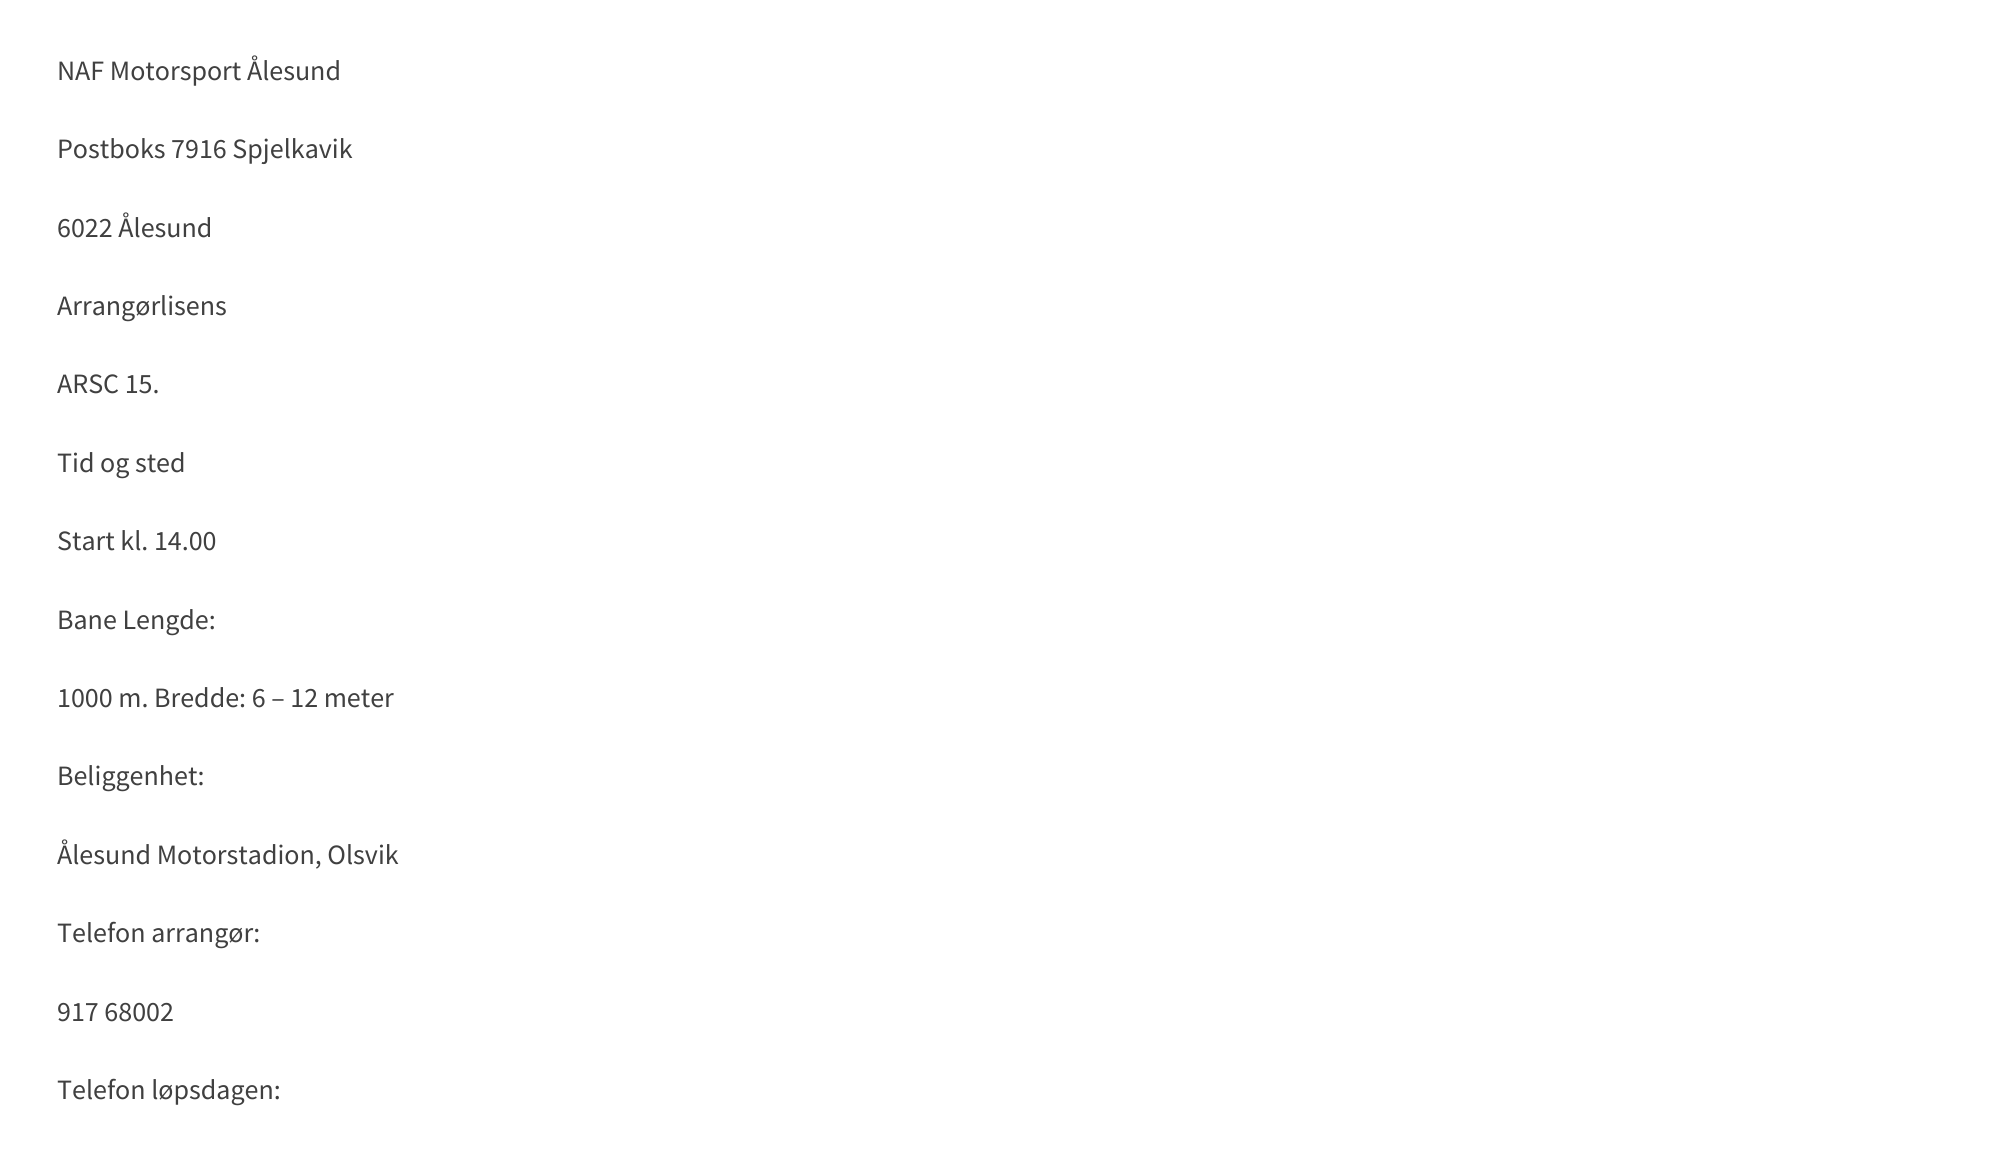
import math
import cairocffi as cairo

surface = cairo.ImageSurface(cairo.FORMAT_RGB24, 2004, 1150)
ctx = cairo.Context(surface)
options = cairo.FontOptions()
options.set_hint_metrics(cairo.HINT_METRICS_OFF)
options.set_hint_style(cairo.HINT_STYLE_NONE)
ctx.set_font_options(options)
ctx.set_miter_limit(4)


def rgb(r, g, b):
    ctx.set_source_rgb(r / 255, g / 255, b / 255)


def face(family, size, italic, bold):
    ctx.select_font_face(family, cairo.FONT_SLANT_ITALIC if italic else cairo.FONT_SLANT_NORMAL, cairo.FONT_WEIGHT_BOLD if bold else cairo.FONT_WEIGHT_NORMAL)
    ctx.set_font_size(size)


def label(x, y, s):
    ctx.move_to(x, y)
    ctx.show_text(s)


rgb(255, 255, 255)
ctx.paint()
face('Source Sans Pro', 28, 0, 0)
rgb(64, 64, 64)
label(57, 80, 'NAF Motorsport Ålesund')
label(57, 158, 'Postboks 7916 Spjelkavik')
label(57, 237, '6022 Ålesund')
label(57, 315, 'Arrangørlisens')
label(57, 393, 'ARSC 15.')
label(57, 472, 'Tid og sted')
label(57, 550, 'Start kl. 14.00')
label(57, 629, 'Bane Lengde:')
label(57, 707, '1000 m. Bredde: 6 – 12 meter')
label(57, 785, 'Beliggenhet:')
label(57, 864, 'Ålesund Motorstadion, Olsvik')
label(57, 942, 'Telefon arrangør:')
label(57, 1021, '917 68002')
label(57, 1099, 'Telefon løpsdagen:')
surface.write_to_png('render.png')
